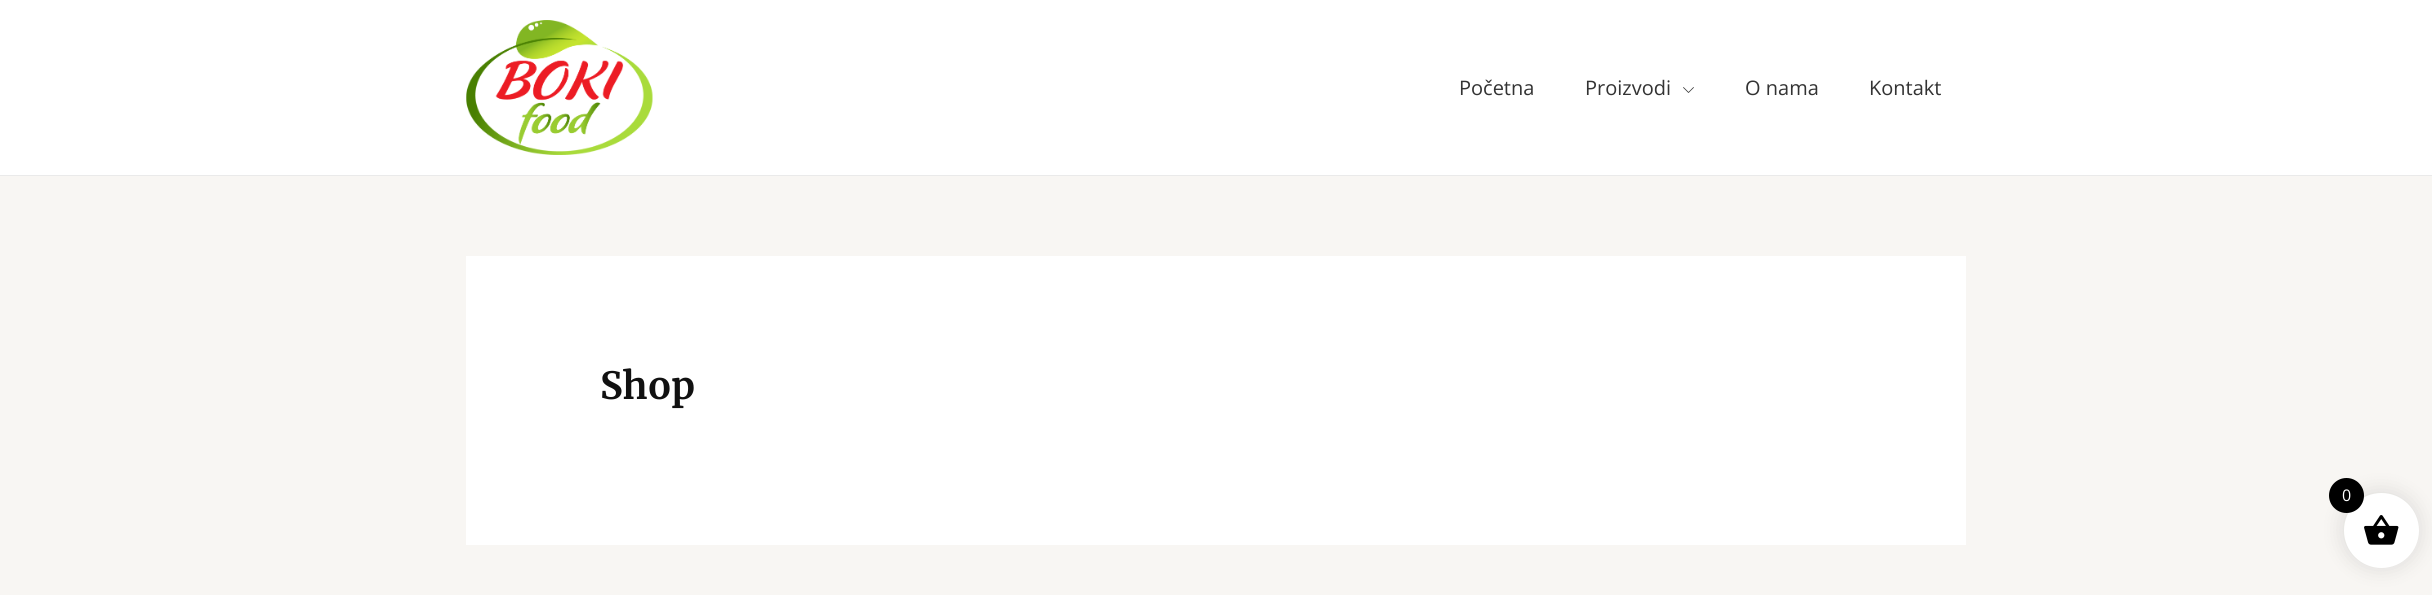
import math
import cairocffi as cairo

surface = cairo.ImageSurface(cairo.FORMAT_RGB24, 2432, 595)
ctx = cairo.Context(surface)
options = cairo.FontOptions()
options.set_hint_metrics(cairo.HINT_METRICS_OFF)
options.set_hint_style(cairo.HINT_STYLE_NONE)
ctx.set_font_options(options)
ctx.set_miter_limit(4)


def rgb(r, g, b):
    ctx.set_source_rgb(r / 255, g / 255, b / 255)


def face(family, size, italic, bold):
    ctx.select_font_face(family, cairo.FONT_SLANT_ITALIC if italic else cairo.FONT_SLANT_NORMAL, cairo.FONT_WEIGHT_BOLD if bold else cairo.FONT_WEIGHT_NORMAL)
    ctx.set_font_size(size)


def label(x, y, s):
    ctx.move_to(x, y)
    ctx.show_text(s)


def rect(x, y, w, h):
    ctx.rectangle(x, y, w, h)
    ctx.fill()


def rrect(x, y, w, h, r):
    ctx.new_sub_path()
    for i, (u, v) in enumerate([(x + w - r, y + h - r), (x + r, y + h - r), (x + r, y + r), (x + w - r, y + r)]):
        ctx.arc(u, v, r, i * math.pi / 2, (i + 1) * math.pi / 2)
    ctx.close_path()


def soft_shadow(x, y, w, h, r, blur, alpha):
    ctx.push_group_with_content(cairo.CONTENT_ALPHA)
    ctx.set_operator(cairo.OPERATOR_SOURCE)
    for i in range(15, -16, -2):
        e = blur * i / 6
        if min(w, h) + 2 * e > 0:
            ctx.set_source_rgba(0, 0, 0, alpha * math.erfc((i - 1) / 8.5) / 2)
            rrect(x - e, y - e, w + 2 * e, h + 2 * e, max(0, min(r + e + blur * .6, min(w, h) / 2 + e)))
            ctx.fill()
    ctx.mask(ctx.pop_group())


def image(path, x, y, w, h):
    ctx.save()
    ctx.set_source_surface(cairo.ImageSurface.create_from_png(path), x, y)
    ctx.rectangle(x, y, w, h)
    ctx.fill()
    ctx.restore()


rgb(248, 246, 243)
ctx.paint()
rgb(255, 255, 255)
rect(0, 0, 2432, 175)
rgb(234, 234, 234)
rect(0, 175, 2432, 1)
image('image0.png', 466, 20, 187, 135)
face('Open Sans', 20, 0, 0)
rgb(51, 51, 51)
label(1459, 95, 'Početna')
label(1585, 95, 'Proizvodi')
image('image1.png', 1683, 87, 11, 6)
label(1745, 95, 'O nama')
label(1869, 95, 'Kontakt')
rgb(255, 255, 255)
rect(466, 256, 1500, 289)
face('Merriweather', 37.5, 0, 1)
rgb(17, 17, 17)
label(600, 399, 'Shop')
rgb(0, 0, 0)
soft_shadow(2341, 490, 80, 80, 40, 9.5, 0.1)
rgb(255, 255, 255)
ctx.arc(2381.5, 530.5, 37.5, 0, 2 * math.pi)
ctx.fill()
rgb(0, 0, 0)
ctx.arc(2346.5, 495.5, 17.5, 0, 2 * math.pi)
ctx.fill()
face('Open Sans', 16, 0, 0)
rgb(255, 255, 255)
label(2342, 501, '0')
image('image2.png', 2364, 515, 35, 30)
surface.write_to_png('render.png')
